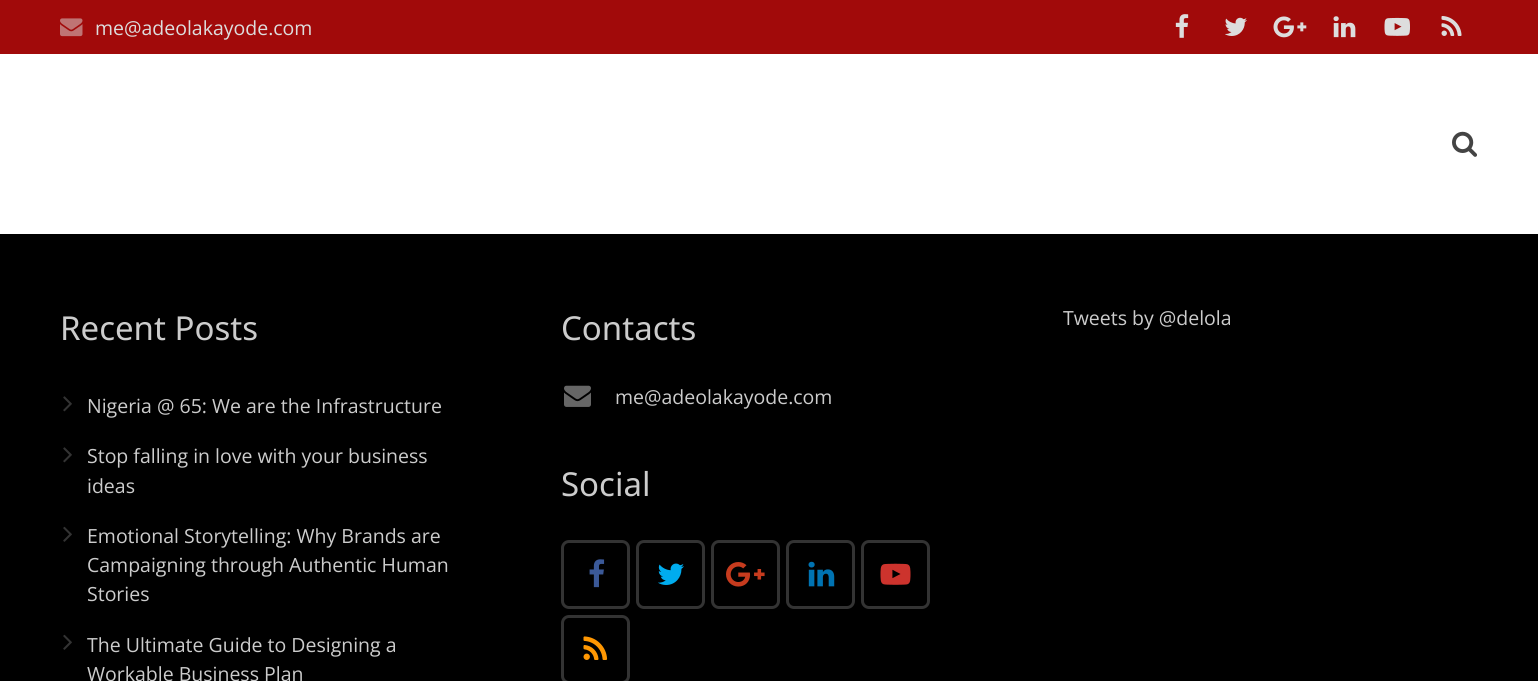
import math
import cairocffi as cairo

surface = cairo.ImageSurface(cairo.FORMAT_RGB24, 1538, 681)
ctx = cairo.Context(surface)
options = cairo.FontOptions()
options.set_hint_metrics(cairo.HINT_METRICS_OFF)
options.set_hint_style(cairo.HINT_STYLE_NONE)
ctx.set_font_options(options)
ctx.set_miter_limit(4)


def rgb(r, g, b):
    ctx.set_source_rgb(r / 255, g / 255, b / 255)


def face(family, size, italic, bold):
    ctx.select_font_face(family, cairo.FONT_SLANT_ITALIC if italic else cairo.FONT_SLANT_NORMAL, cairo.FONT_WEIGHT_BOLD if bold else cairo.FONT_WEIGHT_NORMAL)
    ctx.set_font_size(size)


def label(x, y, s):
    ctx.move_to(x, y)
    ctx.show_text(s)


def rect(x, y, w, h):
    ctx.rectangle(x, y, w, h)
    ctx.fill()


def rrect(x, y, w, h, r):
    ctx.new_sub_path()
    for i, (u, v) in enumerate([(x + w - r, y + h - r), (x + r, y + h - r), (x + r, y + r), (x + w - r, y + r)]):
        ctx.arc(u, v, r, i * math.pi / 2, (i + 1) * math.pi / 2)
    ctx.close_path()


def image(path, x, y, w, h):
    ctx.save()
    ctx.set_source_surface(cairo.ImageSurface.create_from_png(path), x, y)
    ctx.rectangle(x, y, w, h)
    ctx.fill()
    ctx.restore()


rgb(0, 0, 0)
ctx.paint()
rgb(161, 10, 10)
rect(0, 0, 1538, 54)
image('image0.png', 60, 18, 23, 19)
face('Open Sans', 19.5, 0, 0)
rgb(221, 221, 221)
label(95, 35, 'me@adeolakayode.com')
image('image1.png', 1175, 14, 14, 24)
image('image2.png', 1225, 17, 22, 19)
image('image3.png', 1273, 16, 34, 22)
image('image4.png', 1333, 16, 23, 22)
image('image5.png', 1384, 17, 26, 19)
image('image6.png', 1441, 16, 21, 20)
rgb(255, 255, 255)
rect(0, 54, 1538, 180)
image('image7.png', 1452, 131, 25, 26)
face('Noto Sans', 33, 0, 0)
rgb(204, 204, 204)
label(60, 340, 'Recent Posts')
image('image8.png', 63, 396, 9, 16)
face('Open Sans', 19.5, 0, 0)
label(87, 413, 'Nigeria @ 65: We are the Infrastructure')
image('image8.png', 63, 447, 9, 16)
label(87, 463, 'Stop falling in love with your business')
label(87, 493, 'ideas')
image('image9.png', 63, 526, 9, 16)
label(87, 543, 'Emotional Storytelling: Why Brands are')
label(87, 572, 'Campaigning through Authentic Human')
label(87, 601, 'Stories')
image('image9.png', 63, 634, 9, 16)
label(87, 652, 'The Ultimate Guide to Designing a')
label(87, 681, 'Workable Business Plan')
face('Noto Sans', 33, 0, 0)
label(561, 340, 'Contacts')
image('image10.png', 564, 385, 27, 22)
face('Open Sans', 19.5, 0, 0)
label(615, 404, 'me@adeolakayode.com')
face('Noto Sans', 33, 0, 0)
label(561, 496, 'Social')
rrect(562.5, 541.5, 66, 66, 6.5)
rgb(51, 51, 51)
ctx.set_line_width(3)
ctx.stroke()
image('image11.png', 589, 559, 16, 29)
rrect(637.5, 541.5, 66, 66, 6.5)
ctx.stroke()
image('image12.png', 658, 563, 26, 22)
rrect(712.5, 541.5, 66, 66, 6.5)
ctx.stroke()
image('image13.png', 726, 562, 39, 25)
rrect(787.5, 541.5, 66, 66, 6.5)
ctx.stroke()
image('image14.png', 808, 561, 27, 26)
rrect(862.5, 541.5, 66, 66, 6.5)
ctx.stroke()
image('image15.png', 880, 563, 31, 22)
rrect(562.5, 616.5, 66, 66, 6.5)
ctx.stroke()
image('image16.png', 583, 636, 25, 24)
face('Open Sans', 19.5, 0, 0)
rgb(204, 204, 204)
label(1063, 325, 'Tweets by @delola')
surface.write_to_png('render.png')
